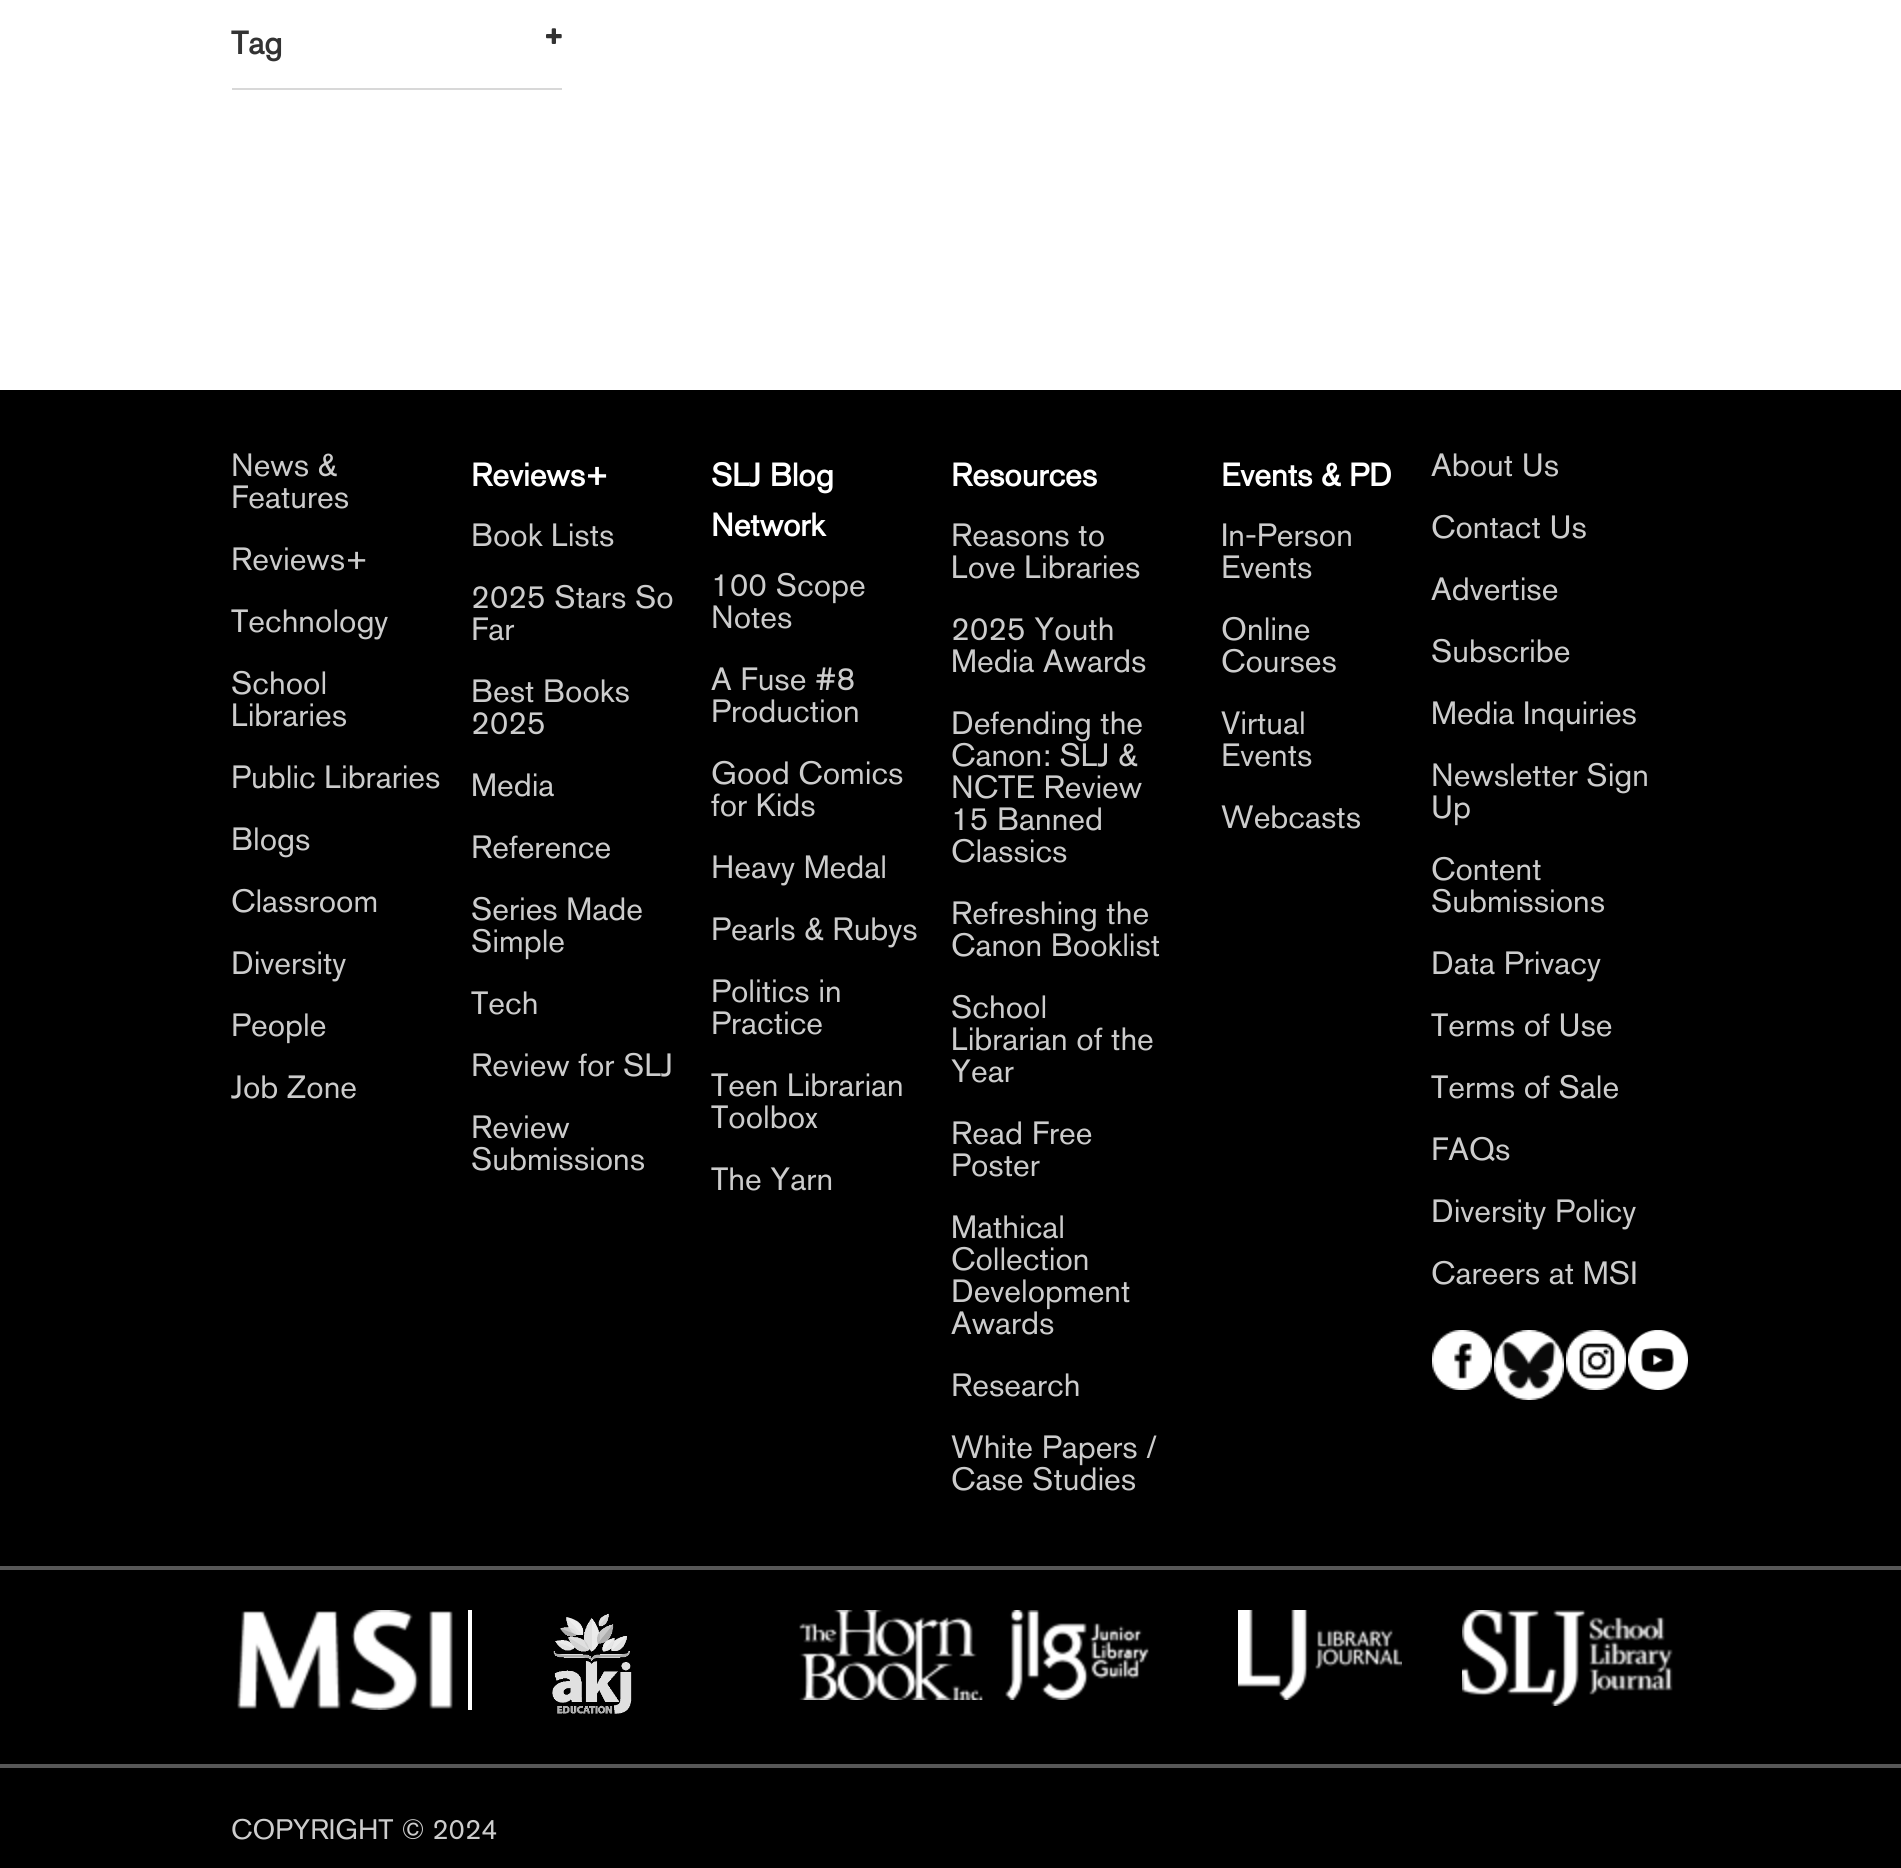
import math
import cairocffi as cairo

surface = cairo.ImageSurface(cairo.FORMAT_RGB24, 1901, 1868)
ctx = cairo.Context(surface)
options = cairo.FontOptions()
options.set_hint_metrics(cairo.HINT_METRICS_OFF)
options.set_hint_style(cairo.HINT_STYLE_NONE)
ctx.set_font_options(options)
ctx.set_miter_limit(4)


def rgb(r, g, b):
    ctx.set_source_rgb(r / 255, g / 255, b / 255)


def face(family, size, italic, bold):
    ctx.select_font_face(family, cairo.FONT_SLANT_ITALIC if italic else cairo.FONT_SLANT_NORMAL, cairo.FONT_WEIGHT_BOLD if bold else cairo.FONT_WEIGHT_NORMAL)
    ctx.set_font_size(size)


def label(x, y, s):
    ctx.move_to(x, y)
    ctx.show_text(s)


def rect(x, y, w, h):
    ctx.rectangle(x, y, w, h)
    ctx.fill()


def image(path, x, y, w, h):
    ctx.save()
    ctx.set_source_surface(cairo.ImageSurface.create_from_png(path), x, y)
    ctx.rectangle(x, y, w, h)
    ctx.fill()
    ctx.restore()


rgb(255, 255, 255)
ctx.paint()
rgb(216, 216, 216)
rect(232, 88, 330, 2)
face('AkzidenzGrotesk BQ', 32, 0, 1)
rgb(51, 51, 51)
label(231, 54, 'Tag')
image('image0.png', 546, 28, 16, 16)
rgb(0, 0, 0)
rect(0, 390, 1901, 1478)
face('AkzidenzGrotesk BQ Medium', 32, 0, 0)
rgb(204, 204, 204)
label(231, 476, 'News &')
label(231, 508, 'Features')
label(231, 570, 'Reviews+')
label(231, 632, 'Technology')
label(231, 694, 'School')
label(231, 726, 'Libraries')
label(231, 788, 'Public Libraries')
label(231, 850, 'Blogs')
label(231, 912, 'Classroom')
label(231, 974, 'Diversity')
label(231, 1036, 'People')
label(231, 1098, 'Job Zone')
face('AkzidenzGrotesk BQ', 32, 0, 1)
rgb(255, 255, 255)
label(471, 486, 'Reviews+')
face('AkzidenzGrotesk BQ Medium', 32, 0, 0)
rgb(204, 204, 204)
label(471, 546, 'Book Lists')
label(471, 608, '2025 Stars So')
label(471, 640, 'Far')
label(471, 702, 'Best Books')
label(471, 734, '2025')
label(471, 796, 'Media')
label(471, 858, 'Reference')
label(471, 920, 'Series Made')
label(471, 952, 'Simple')
label(471, 1014, 'Tech')
label(471, 1076, 'Review for SLJ')
label(471, 1138, 'Review')
label(471, 1170, 'Submissions')
face('AkzidenzGrotesk BQ', 32, 0, 1)
rgb(255, 255, 255)
label(711, 486, 'SLJ Blog')
label(711, 536, 'Network')
face('AkzidenzGrotesk BQ Medium', 32, 0, 0)
rgb(204, 204, 204)
label(711, 596, '100 Scope')
label(711, 628, 'Notes')
label(711, 690, 'A Fuse #8')
label(711, 722, 'Production')
label(711, 784, 'Good Comics')
label(711, 816, 'for Kids')
label(711, 878, 'Heavy Medal')
label(711, 940, 'Pearls & Rubys')
label(711, 1002, 'Politics in')
label(711, 1034, 'Practice')
label(711, 1096, 'Teen Librarian')
label(711, 1128, 'Toolbox')
label(711, 1190, 'The Yarn')
face('AkzidenzGrotesk BQ', 32, 0, 1)
rgb(255, 255, 255)
label(951, 486, 'Resources')
face('AkzidenzGrotesk BQ Medium', 32, 0, 0)
rgb(204, 204, 204)
label(951, 546, 'Reasons to')
label(951, 578, 'Love Libraries')
label(951, 640, '2025 Youth')
label(951, 672, 'Media Awards')
label(951, 734, 'Defending the')
label(951, 766, 'Canon: SLJ &')
label(951, 798, 'NCTE Review')
label(951, 830, '15 Banned')
label(951, 862, 'Classics')
label(951, 924, 'Refreshing the')
label(951, 956, 'Canon Booklist')
label(951, 1018, 'School')
label(951, 1050, 'Librarian of the')
label(951, 1082, 'Year')
label(951, 1144, 'Read Free')
label(951, 1176, 'Poster')
label(951, 1238, 'Mathical')
label(951, 1270, 'Collection')
label(951, 1302, 'Development')
label(951, 1334, 'Awards')
label(951, 1396, 'Research')
label(951, 1458, 'White Papers /')
label(951, 1490, 'Case Studies')
face('AkzidenzGrotesk BQ', 32, 0, 1)
rgb(255, 255, 255)
label(1221, 486, 'Events & PD')
face('AkzidenzGrotesk BQ Medium', 32, 0, 0)
rgb(204, 204, 204)
label(1221, 546, 'In-Person')
label(1221, 578, 'Events')
label(1221, 640, 'Online')
label(1221, 672, 'Courses')
label(1221, 734, 'Virtual')
label(1221, 766, 'Events')
label(1221, 828, 'Webcasts')
label(1431, 476, 'About Us')
label(1431, 538, 'Contact Us')
label(1431, 600, 'Advertise')
label(1431, 662, 'Subscribe')
label(1431, 724, 'Media Inquiries')
label(1431, 786, 'Newsletter Sign')
label(1431, 818, 'Up')
label(1431, 880, 'Content')
label(1431, 912, 'Submissions')
label(1431, 974, 'Data Privacy')
label(1431, 1036, 'Terms of Use')
label(1431, 1098, 'Terms of Sale')
label(1431, 1160, 'FAQs')
label(1431, 1222, 'Diversity Policy')
label(1431, 1284, 'Careers at MSI')
image('image1.png', 1432, 1330, 60, 60)
image('image2.png', 1494, 1330, 70, 70)
image('image3.png', 1566, 1330, 60, 60)
image('image4.png', 1628, 1330, 60, 60)
rgb(87, 87, 87)
rect(0, 1566, 1901, 4)
rgb(255, 255, 255)
rect(468, 1610, 4, 100)
image('image5.png', 237, 1610, 216, 100)
image('image6.png', 552, 1613, 80, 101)
image('image7.png', 799, 1610, 184, 90)
image('image8.png', 1005, 1610, 144, 90)
image('image9.png', 1238, 1610, 164, 90)
image('image10.png', 1462, 1610, 211, 96)
rgb(87, 87, 87)
rect(0, 1764, 1901, 4)
face('AkzidenzGrotesk BQ Medium', 28, 0, 0)
rgb(204, 204, 204)
label(231, 1839, 'COPYRIGHT © 2024')
surface.write_to_png('render.png')
